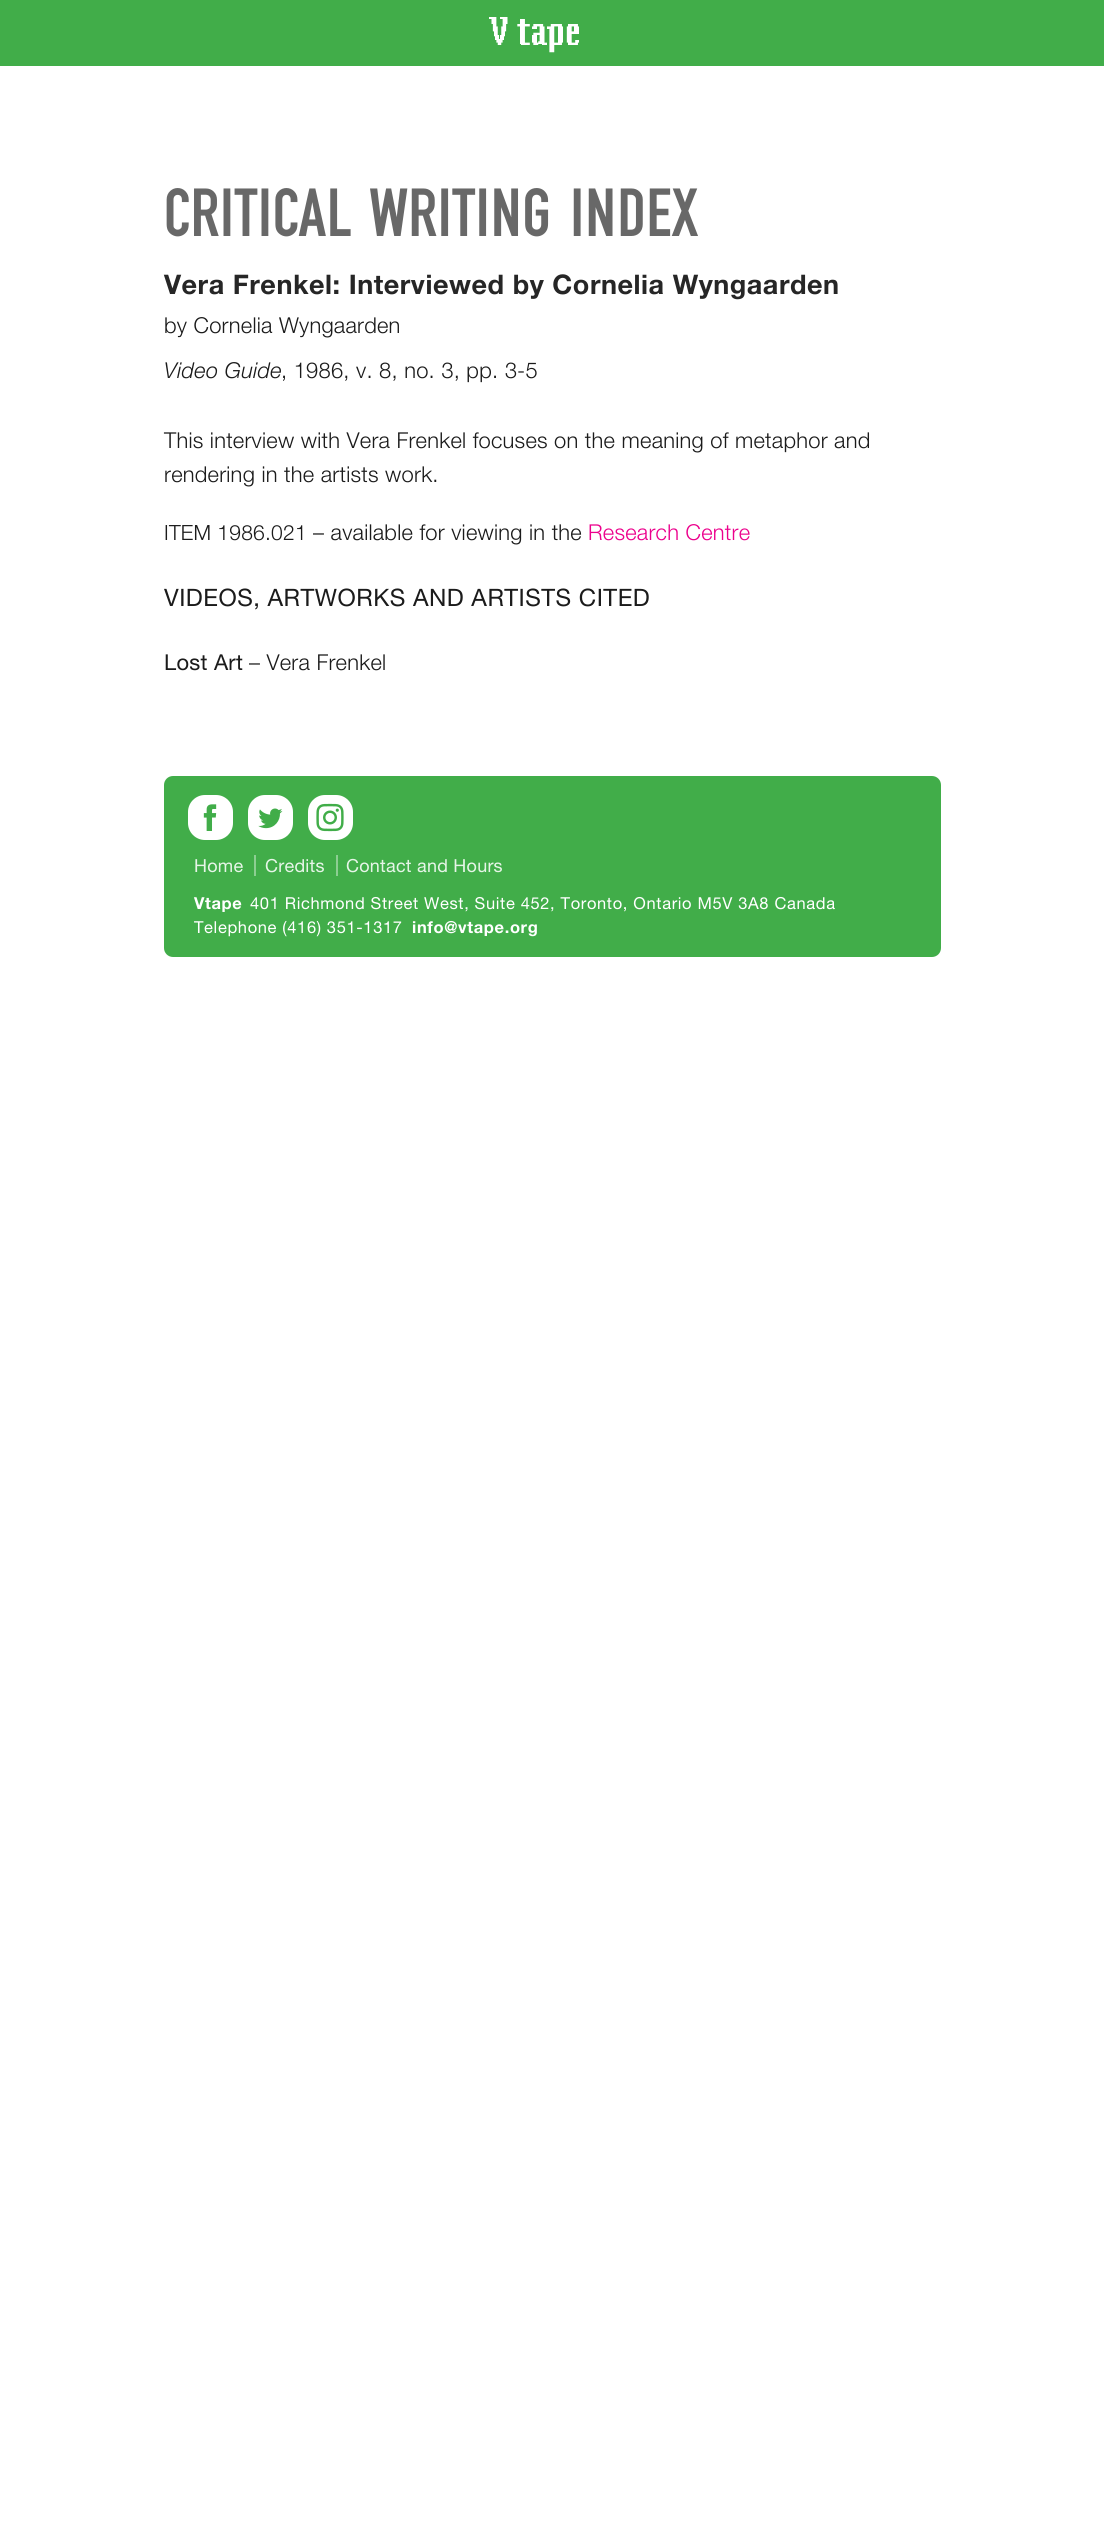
import math
import cairocffi as cairo

surface = cairo.ImageSurface(cairo.FORMAT_RGB24, 1104, 2522)
ctx = cairo.Context(surface)
options = cairo.FontOptions()
options.set_hint_metrics(cairo.HINT_METRICS_OFF)
options.set_hint_style(cairo.HINT_STYLE_NONE)
ctx.set_font_options(options)
ctx.set_miter_limit(4)


def rgb(r, g, b):
    ctx.set_source_rgb(r / 255, g / 255, b / 255)


def face(family, size, italic, bold):
    ctx.select_font_face(family, cairo.FONT_SLANT_ITALIC if italic else cairo.FONT_SLANT_NORMAL, cairo.FONT_WEIGHT_BOLD if bold else cairo.FONT_WEIGHT_NORMAL)
    ctx.set_font_size(size)


def tracked(x, y, s, letter, word):
    ctx.move_to(x, y)
    for ch in s:
        ctx.show_text(ch)
        ctx.rel_move_to(letter + word * (ch == ' '), 0)


def rect(x, y, w, h):
    ctx.rectangle(x, y, w, h)
    ctx.fill()


def rrect(x, y, w, h, r):
    ctx.new_sub_path()
    for i, (u, v) in enumerate([(x + w - r, y + h - r), (x + r, y + h - r), (x + r, y + r), (x + w - r, y + r)]):
        ctx.arc(u, v, r, i * math.pi / 2, (i + 1) * math.pi / 2)
    ctx.close_path()


def image(path, x, y, w, h):
    ctx.save()
    ctx.set_source_surface(cairo.ImageSurface.create_from_png(path), x, y)
    ctx.rectangle(x, y, w, h)
    ctx.fill()
    ctx.restore()


rgb(255, 255, 255)
ctx.paint()
rgb(65, 173, 73)
rect(0, 0, 1104, 66)
image('image0.png', 489, 17, 90, 36)
face('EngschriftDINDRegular', 66, 0, 0)
rgb(104, 104, 104)
tracked(164, 236, 'CRITICAL', 0.65, 0)
tracked(370, 236, 'WRITING', 0.65, 0)
tracked(570, 236, 'INDEX', 0.65, 0)
face('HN', 27, 0, 1)
rgb(38, 38, 38)
tracked(164, 294, 'Vera Frenkel: Interviewed by Cornelia Wyngaarden', 0.55, 0)
face('HN Light', 21.9, 0, 0)
rgb(27, 27, 27)
tracked(164, 333, 'by Cornelia Wyngaarden', 0.25, 0)
face('HN Light', 21.9, 1, 0)
tracked(164, 378, 'Video Guide', 0.25, 0)
face('HN Light', 21.9, 0, 0)
tracked(281, 378, ', 1986, v. 8, no. 3, pp. 3-5', 0.25, 0)
tracked(164, 448, 'This interview with Vera Frenkel focuses on the meaning of metaphor and', 0.25, 0)
tracked(164, 482, 'rendering in the artists work.', 0.25, 0)
face('HN Light', 21, 0, 0)
tracked(164, 540, 'ITEM 1986.021', 0.25, 0)
face('HN Light', 21.9, 0, 0)
tracked(313, 540, '– available for viewing in the', 0.25, 0)
rgb(236, 0, 140)
tracked(588, 540, 'Research Centre', 0.25, 0)
face('HN', 24, 0, 0)
rgb(27, 27, 27)
tracked(164, 606, 'VIDEOS, ARTWORKS AND ARTISTS CITED', 0.5, 0)
face('HN', 21.9, 0, 0)
tracked(164, 670, 'Lost Art', 0.25, 0)
face('HN Light', 21.9, 0, 0)
tracked(249, 670, '– Vera Frenkel', 0.25, 0)
rgb(65, 173, 73)
rrect(164, 776, 777, 181, 9)
ctx.fill()
rgb(255, 255, 255)
rrect(188, 795, 45, 45, 17)
ctx.fill()
image('image1.png', 203, 804, 14, 27)
rrect(248, 795, 45, 45, 17)
ctx.fill()
image('image2.png', 258, 808, 25, 21)
rrect(308, 795, 45, 45, 17)
ctx.fill()
image('image3.png', 316, 803, 28, 29)
face('HN', 18, 0, 0)
rgb(230, 245, 231)
tracked(194, 872, 'Home', 0.25, 0)
tracked(265, 872, 'Credits', 0.25, 0)
rgb(141, 206, 146)
rect(254, 855, 2, 21)
rgb(230, 245, 231)
tracked(346, 872, 'Contact and Hours', 0.25, 0)
rgb(141, 206, 146)
rect(336, 855, 2, 21)
face('HN', 16.5, 0, 1)
rgb(255, 255, 255)
tracked(194, 909, 'Vtape', 0.65, 0)
face('HN', 16.5, 0, 0)
tracked(250, 909, '401 Richmond Street West, Suite 452, Toronto, Ontario M5V 3A8 Canada', 0.65, 0)
tracked(194, 933, 'Telephone (416) 351-1317', 0.65, 0)
face('HN', 16.5, 0, 1)
tracked(412, 933, 'info@vtape.org', 0.65, 0)
surface.write_to_png('render.png')
